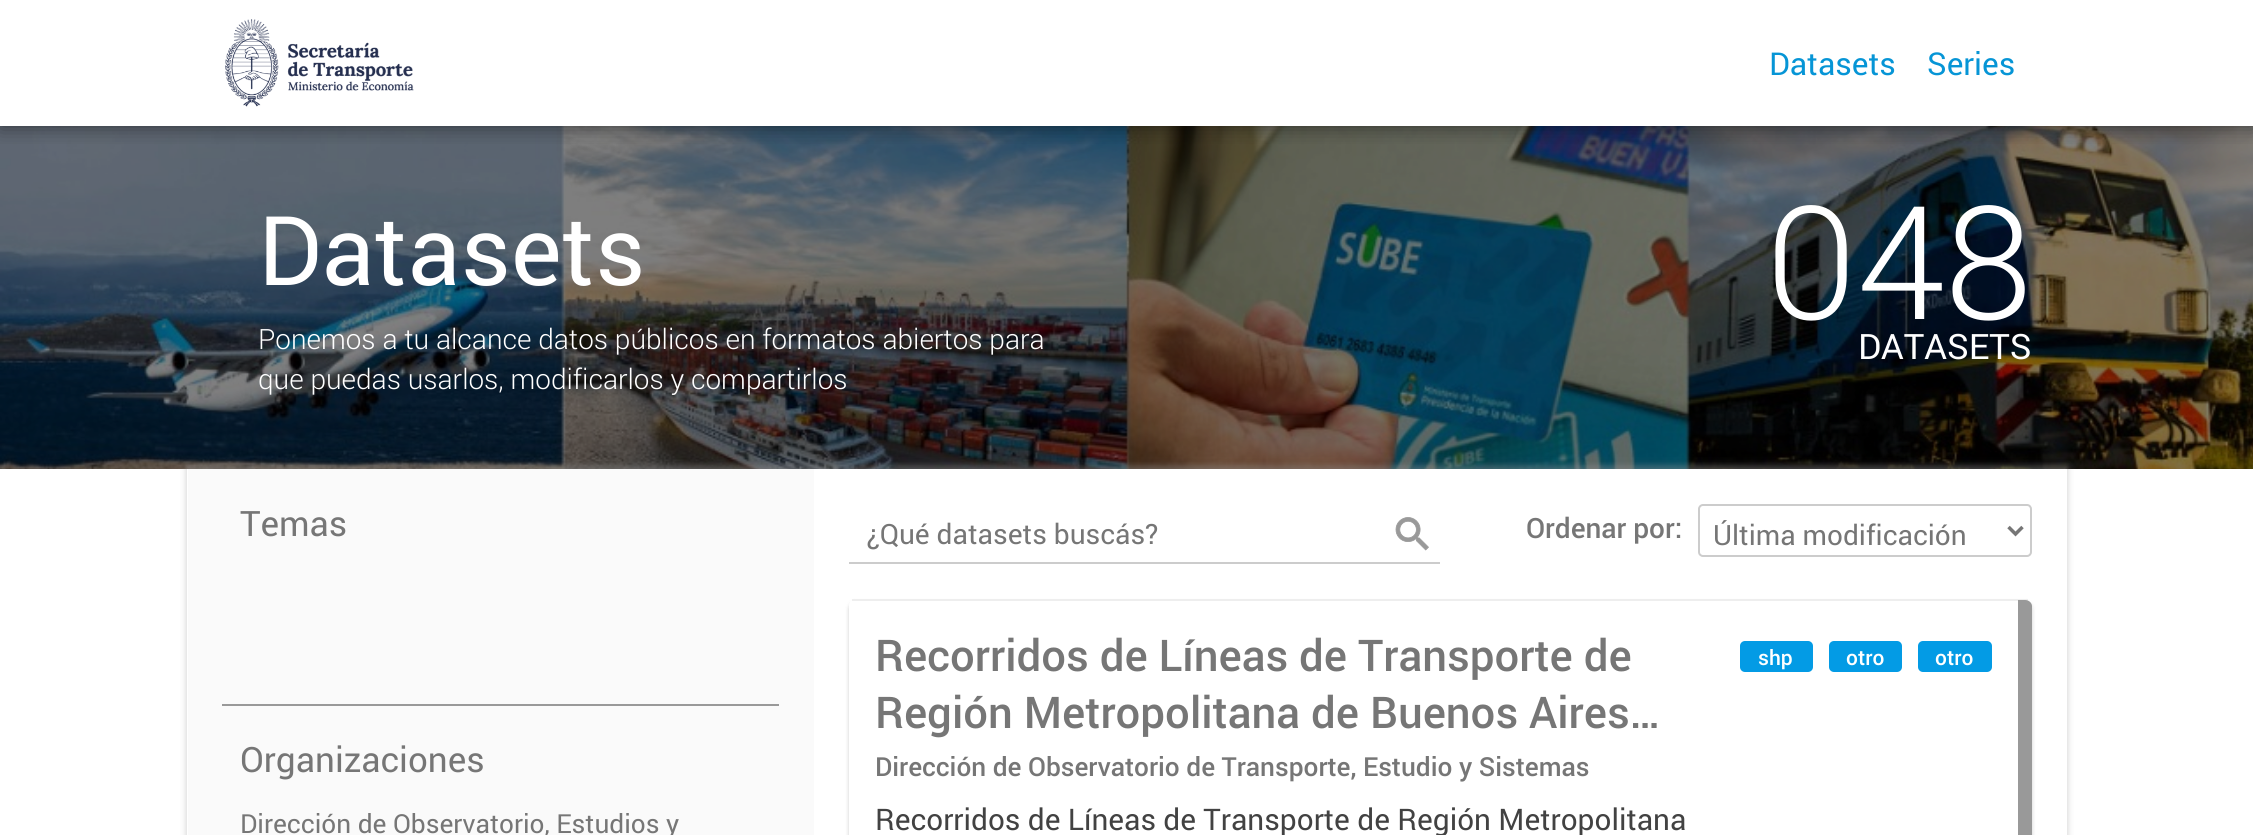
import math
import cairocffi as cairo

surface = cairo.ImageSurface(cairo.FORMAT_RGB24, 2253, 835)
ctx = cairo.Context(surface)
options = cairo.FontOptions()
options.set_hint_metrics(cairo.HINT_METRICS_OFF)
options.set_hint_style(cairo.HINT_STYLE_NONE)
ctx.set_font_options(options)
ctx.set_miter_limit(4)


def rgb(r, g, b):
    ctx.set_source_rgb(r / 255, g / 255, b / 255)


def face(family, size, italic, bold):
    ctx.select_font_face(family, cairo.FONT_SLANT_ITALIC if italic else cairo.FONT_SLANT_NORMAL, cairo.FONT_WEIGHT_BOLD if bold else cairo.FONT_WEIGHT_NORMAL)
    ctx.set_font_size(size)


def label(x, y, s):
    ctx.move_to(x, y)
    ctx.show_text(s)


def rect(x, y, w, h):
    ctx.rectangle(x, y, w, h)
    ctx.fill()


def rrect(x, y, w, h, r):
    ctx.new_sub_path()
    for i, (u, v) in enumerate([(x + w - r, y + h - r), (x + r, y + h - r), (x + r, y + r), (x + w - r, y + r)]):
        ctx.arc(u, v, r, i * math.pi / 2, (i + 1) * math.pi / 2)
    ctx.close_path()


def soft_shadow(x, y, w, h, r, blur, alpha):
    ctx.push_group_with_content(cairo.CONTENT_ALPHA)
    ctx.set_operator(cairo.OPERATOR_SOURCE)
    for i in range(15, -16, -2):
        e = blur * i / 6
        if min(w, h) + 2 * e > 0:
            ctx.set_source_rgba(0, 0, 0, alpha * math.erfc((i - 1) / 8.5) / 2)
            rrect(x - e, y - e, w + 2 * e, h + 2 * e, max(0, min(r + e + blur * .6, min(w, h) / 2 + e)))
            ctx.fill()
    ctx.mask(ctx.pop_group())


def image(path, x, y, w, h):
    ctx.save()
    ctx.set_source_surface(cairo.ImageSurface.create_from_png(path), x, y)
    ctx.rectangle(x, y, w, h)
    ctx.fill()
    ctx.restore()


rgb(255, 255, 255)
ctx.paint()
image('image1.png', 0, 126, 2253, 343)
ctx.save()
ctx.rectangle(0, 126, 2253, 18)
ctx.clip()
rgb(0, 0, 0)
soft_shadow(0, 0, 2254, 126, 0, 10.5, 0.5)
ctx.restore()
image('image0.png', 225, 19, 189, 88)
face('Roboto', 31.5, 0, 0)
rgb(6, 149, 214)
label(1769, 75, 'Datasets')
label(1927, 75, 'Series')
face('Roboto', 96.25, 0, 0)
rgb(255, 255, 255)
label(258, 285, 'Datasets')
face('Roboto Light', 28, 0, 0)
label(258, 349, 'Ponemos a tu alcance datos públicos en formatos abiertos para')
label(258, 389, 'que puedas usarlos, modificarlos y compartirlos')
face('Roboto Light', 158, 0, 0)
label(1765, 319, '048')
face('Roboto', 35, 0, 0)
label(1858, 359, 'DATASETS')
ctx.save()
ctx.set_fill_rule(cairo.FILL_RULE_EVEN_ODD)
ctx.new_path()
ctx.move_to(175, 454)
ctx.line_to(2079, 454)
ctx.line_to(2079, 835)
ctx.line_to(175, 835)
ctx.close_path()
ctx.move_to(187, 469)
ctx.line_to(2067, 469)
ctx.line_to(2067, 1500)
ctx.line_to(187, 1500)
ctx.close_path()
ctx.clip()
rgb(150, 150, 150)
soft_shadow(187, 466, 1880, 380, 0, 3.5, 0.5)
ctx.restore()
rgb(250, 250, 250)
rect(188, 469, 626, 366)
rgb(118, 118, 118)
label(240, 536, 'Temas')
rgb(153, 153, 153)
rect(222, 704, 557, 2)
rgb(118, 118, 118)
label(240, 772, 'Organizaciones')
face('Roboto', 26.25, 0, 0)
label(240, 833, 'Dirección de Observatorio, Estudios y')
rgb(204, 204, 204)
rect(849, 562, 591, 2)
face('Roboto', 28, 0, 0)
rgb(118, 118, 118)
label(866, 544, '¿Qué datasets buscás?')
image('image2.png', 1395, 517, 34, 34)
face('Roboto Medium', 28, 0, 0)
label(1526, 538, 'Ordenar por:')
rrect(1699, 505, 332, 51, 4)
rgb(204, 204, 204)
ctx.stroke()
ctx.new_path()
ctx.move_to(2008.5, 527)
ctx.line_to(2015.5, 534)
ctx.line_to(2022.5, 527)
rgb(118, 118, 118)
ctx.set_line_width(3.5)
ctx.stroke()
face('Roboto', 28, 0, 0)
label(1713, 545, 'Última modificación')
ctx.save()
ctx.set_fill_rule(cairo.FILL_RULE_EVEN_ODD)
ctx.new_path()
ctx.move_to(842, 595)
ctx.line_to(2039, 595)
ctx.line_to(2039, 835)
ctx.line_to(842, 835)
ctx.close_path()
ctx.move_to(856, 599)
ctx.line_to(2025, 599)
ctx.curve_to(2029, 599, 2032, 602, 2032, 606)
ctx.line_to(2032, 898)
ctx.curve_to(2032, 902, 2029, 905, 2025, 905)
ctx.line_to(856, 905)
ctx.curve_to(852, 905, 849, 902, 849, 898)
ctx.line_to(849, 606)
ctx.curve_to(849, 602, 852, 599, 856, 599)
ctx.close_path()
ctx.clip()
rgb(0, 0, 0)
soft_shadow(849, 602, 1183, 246, 7, 2, 0.2)
ctx.restore()
rgb(238, 238, 238)
rect(852, 599, 1176, 2)
rgb(153, 153, 153)
ctx.new_path()
ctx.move_to(2018, 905)
ctx.line_to(2018, 600)
ctx.line_to(2025, 600)
ctx.curve_to(2029, 600, 2032, 603, 2032, 606)
ctx.line_to(2032, 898)
ctx.curve_to(2032, 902, 2029, 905, 2025, 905)
ctx.close_path()
ctx.fill()
face('Roboto Medium', 43.75, 0, 0)
rgb(118, 118, 118)
label(875, 671, 'Recorridos de Líneas de Transporte de')
label(875, 728, 'Región Metropolitana de Buenos Aires…')
face('Roboto Medium', 26.25, 0, 0)
label(875, 776, 'Dirección de Observatorio de Transporte, Estudio y Sistemas')
face('Roboto', 29.75, 0, 0)
rgb(66, 66, 66)
label(875, 830, 'Recorridos de Líneas de Transporte de Región Metropolitana')
rgb(3, 155, 229)
rrect(1740, 641, 73, 31, 5)
ctx.fill()
face('Roboto Medium', 21, 0, 0)
rgb(255, 255, 255)
label(1758, 665, 'shp')
rgb(3, 155, 229)
rrect(1829, 641, 73, 31, 5)
ctx.fill()
rgb(255, 255, 255)
label(1846, 665, 'otro')
rgb(3, 155, 229)
rrect(1918, 641, 74, 31, 5)
ctx.fill()
rgb(255, 255, 255)
label(1935, 665, 'otro')
surface.write_to_png('render.png')
